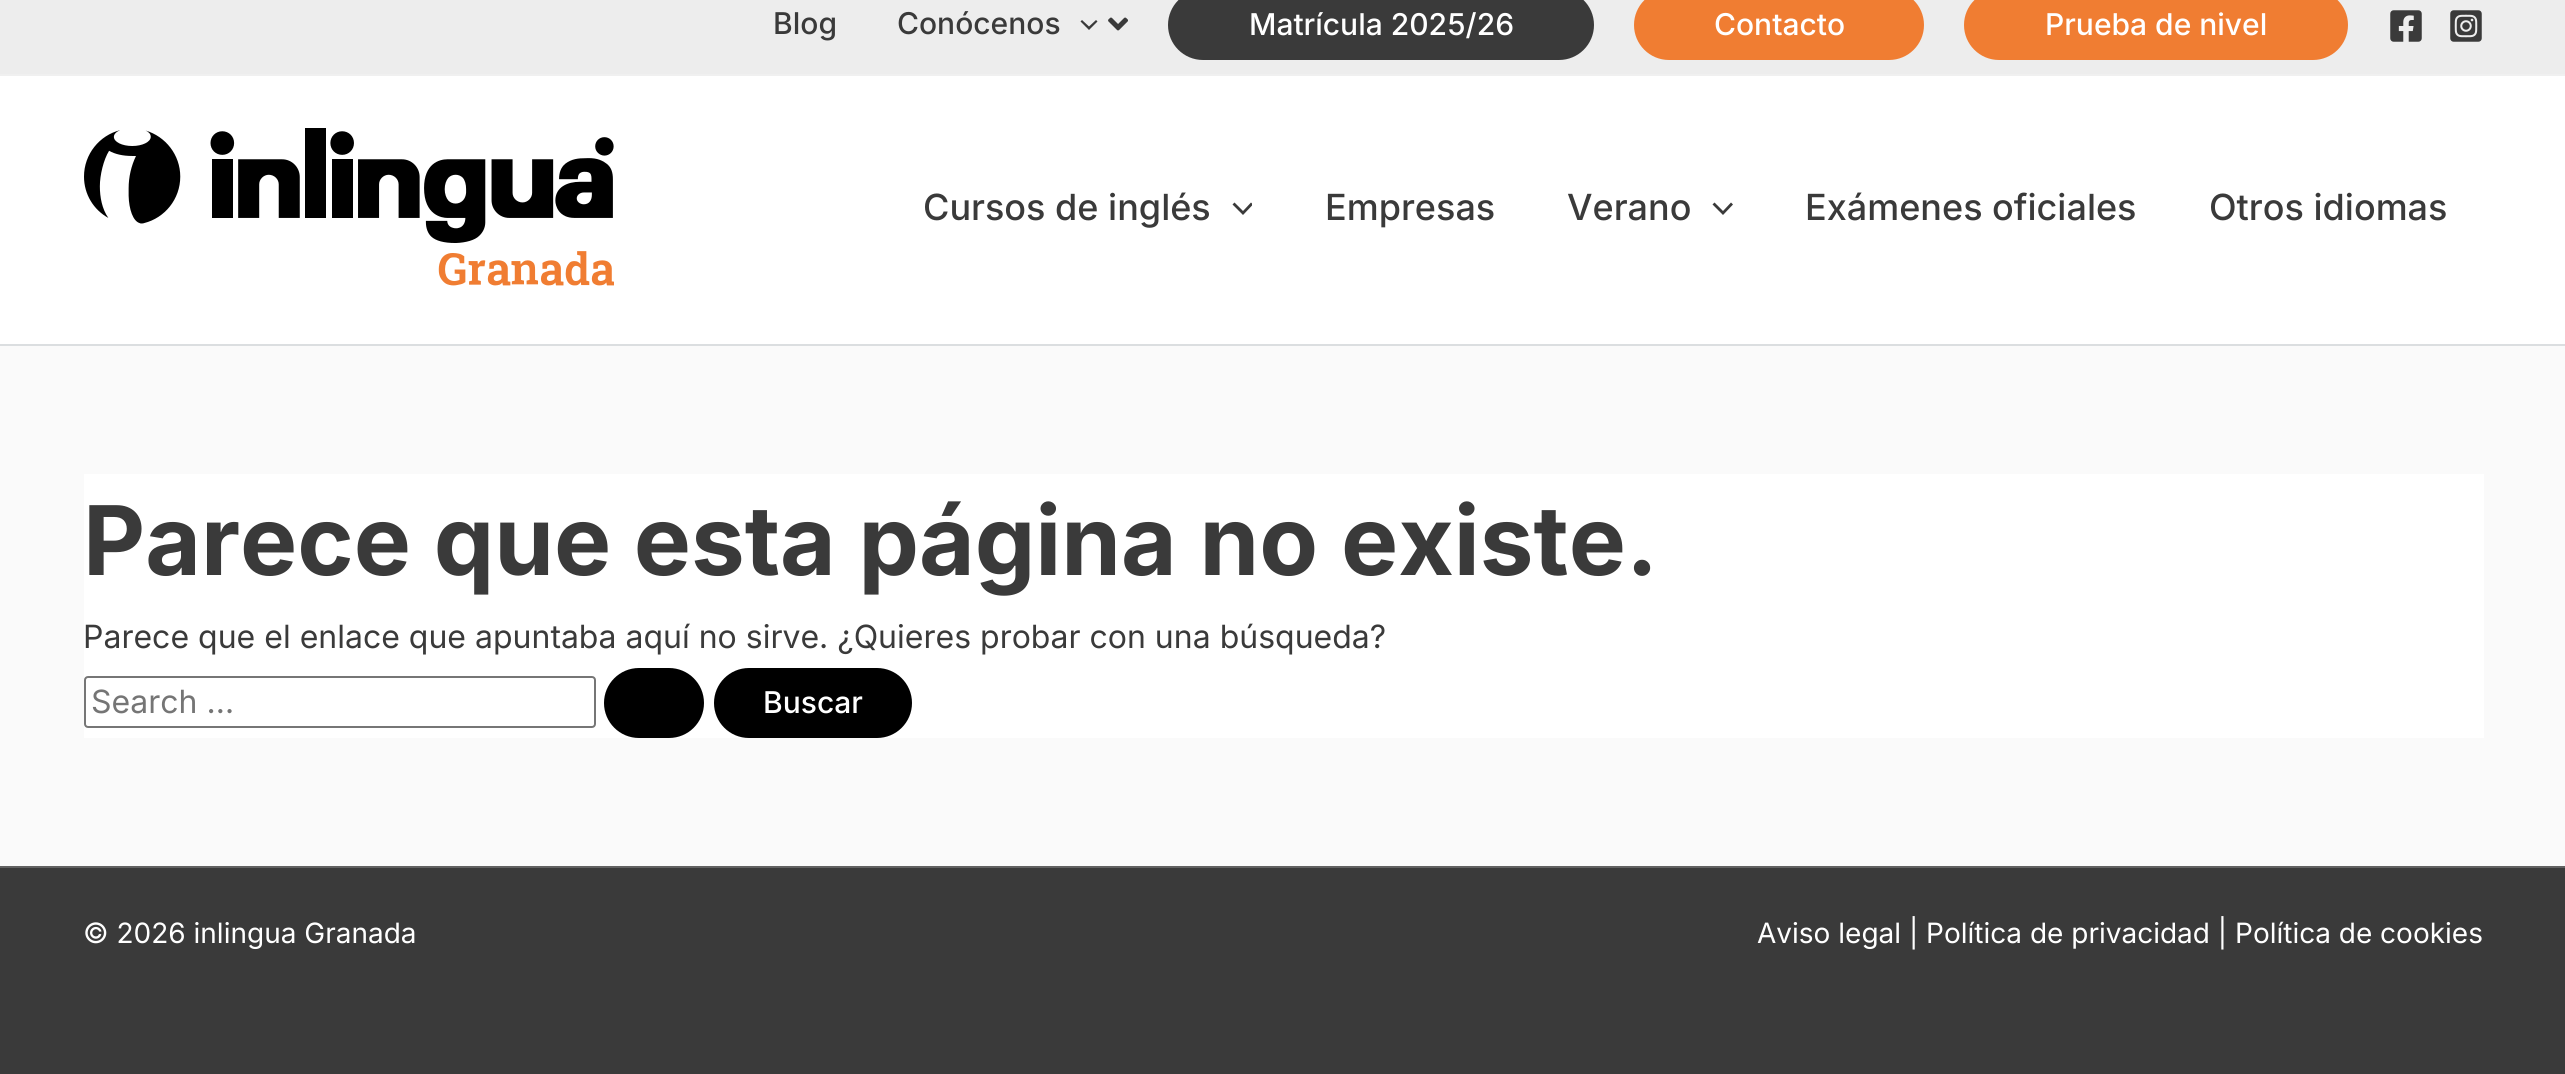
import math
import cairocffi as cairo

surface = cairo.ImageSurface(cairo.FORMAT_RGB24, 2565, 1074)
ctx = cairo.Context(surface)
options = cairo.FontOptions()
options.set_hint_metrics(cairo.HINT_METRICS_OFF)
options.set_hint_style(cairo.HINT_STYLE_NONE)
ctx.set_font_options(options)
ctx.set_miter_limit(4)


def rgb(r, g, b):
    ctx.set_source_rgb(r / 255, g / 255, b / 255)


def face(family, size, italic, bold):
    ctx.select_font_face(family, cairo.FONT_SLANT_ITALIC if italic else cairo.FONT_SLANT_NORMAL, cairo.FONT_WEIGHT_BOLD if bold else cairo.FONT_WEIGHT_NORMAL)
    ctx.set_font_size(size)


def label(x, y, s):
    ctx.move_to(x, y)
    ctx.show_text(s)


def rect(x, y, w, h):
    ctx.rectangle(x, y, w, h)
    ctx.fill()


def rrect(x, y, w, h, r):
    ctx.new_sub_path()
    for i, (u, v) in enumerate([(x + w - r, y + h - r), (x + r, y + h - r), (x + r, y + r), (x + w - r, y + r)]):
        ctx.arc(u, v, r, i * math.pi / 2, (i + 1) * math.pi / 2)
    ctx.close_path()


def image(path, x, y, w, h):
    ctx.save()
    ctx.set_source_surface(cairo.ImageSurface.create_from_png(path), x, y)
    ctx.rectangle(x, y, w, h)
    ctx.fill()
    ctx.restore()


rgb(250, 250, 250)
ctx.paint()
rgb(237, 237, 237)
rect(0, 0, 2565, 74)
rgb(240, 240, 240)
rect(0, 74, 2565, 2)
face('Inter Medium', 30, 0, 0)
rgb(58, 58, 58)
label(773, 34, 'Blog')
label(897, 34, 'Conócenos')
ctx.new_path()
ctx.move_to(1080.5, 21.5)
ctx.line_to(1089, 30)
ctx.line_to(1097.5, 21.5)
ctx.line_to(1096, 20)
ctx.line_to(1089, 26.5)
ctx.line_to(1082, 20)
ctx.close_path()
ctx.fill()
image('image0.png', 1108, 17, 20, 14)
rrect(1168, -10, 426, 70, 35)
ctx.fill()
rgb(255, 255, 255)
label(1249, 35, 'Matrícula 2025/26')
rgb(240, 125, 50)
rrect(1634, -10, 290, 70, 35)
ctx.fill()
rgb(255, 255, 255)
label(1714, 35, 'Contacto')
rgb(240, 125, 50)
rrect(1964, -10, 384, 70, 35)
ctx.fill()
rgb(255, 255, 255)
label(2045, 35, 'Prueba de nivel')
image('image1.png', 2390, 10, 32, 32)
image('image2.png', 2450, 10, 32, 32)
rect(0, 76, 2565, 268)
rgb(219, 222, 224)
rect(0, 344, 2565, 2)
image('image3.png', 84, 128, 530, 158)
face('Inter Medium', 36, 0, 0)
rgb(58, 58, 58)
label(923, 220, 'Cursos de inglés')
ctx.save()
ctx.rectangle(1232, 198, 20, 22)
ctx.clip()
ctx.new_path()
ctx.move_to(1232.5, 204.5)
ctx.line_to(1243, 215)
ctx.line_to(1253, 204.5)
ctx.line_to(1251, 202.5)
ctx.line_to(1243, 211)
ctx.line_to(1234.5, 202.5)
ctx.close_path()
ctx.fill()
ctx.restore()
label(1325, 220, 'Empresas')
label(1567, 220, 'Verano')
ctx.new_path()
ctx.move_to(1712.5, 204.5)
ctx.line_to(1723, 215)
ctx.line_to(1733, 204.5)
ctx.line_to(1731, 202.5)
ctx.line_to(1723, 211)
ctx.line_to(1714.5, 202.5)
ctx.close_path()
ctx.fill()
label(1805, 220, 'Exámenes oficiales')
label(2209, 220, 'Otros idiomas')
rgb(255, 255, 255)
rect(84, 474, 2400, 264)
face('Inter', 96, 0, 1)
rgb(58, 58, 58)
label(83, 575, 'Parece que esta página no existe.')
face('Inter', 32, 0, 0)
label(83, 648, 'Parece que el enlace que apuntaba aquí no sirve. ¿Quieres probar con una búsqueda?')
rrect(85, 677, 510, 50, 3)
rgb(118, 118, 118)
ctx.stroke()
rgb(117, 117, 117)
label(91, 713, 'Search …')
rgb(0, 0, 0)
rrect(604, 668, 100, 70, 35)
ctx.fill()
rrect(714, 668, 198, 70, 35)
ctx.fill()
face('Inter Medium', 30, 0, 0)
rgb(255, 255, 255)
label(763, 713, 'Buscar')
rgb(58, 58, 58)
rect(0, 868, 2565, 206)
rgb(97, 97, 97)
rect(0, 866, 2565, 2)
face('Inter', 28, 0, 0)
rgb(255, 255, 255)
label(83, 943, '© 2026 inlingua Granada')
label(1757, 943, 'Aviso legal | Política de privacidad | Política de cookies')
surface.write_to_png('render.png')
